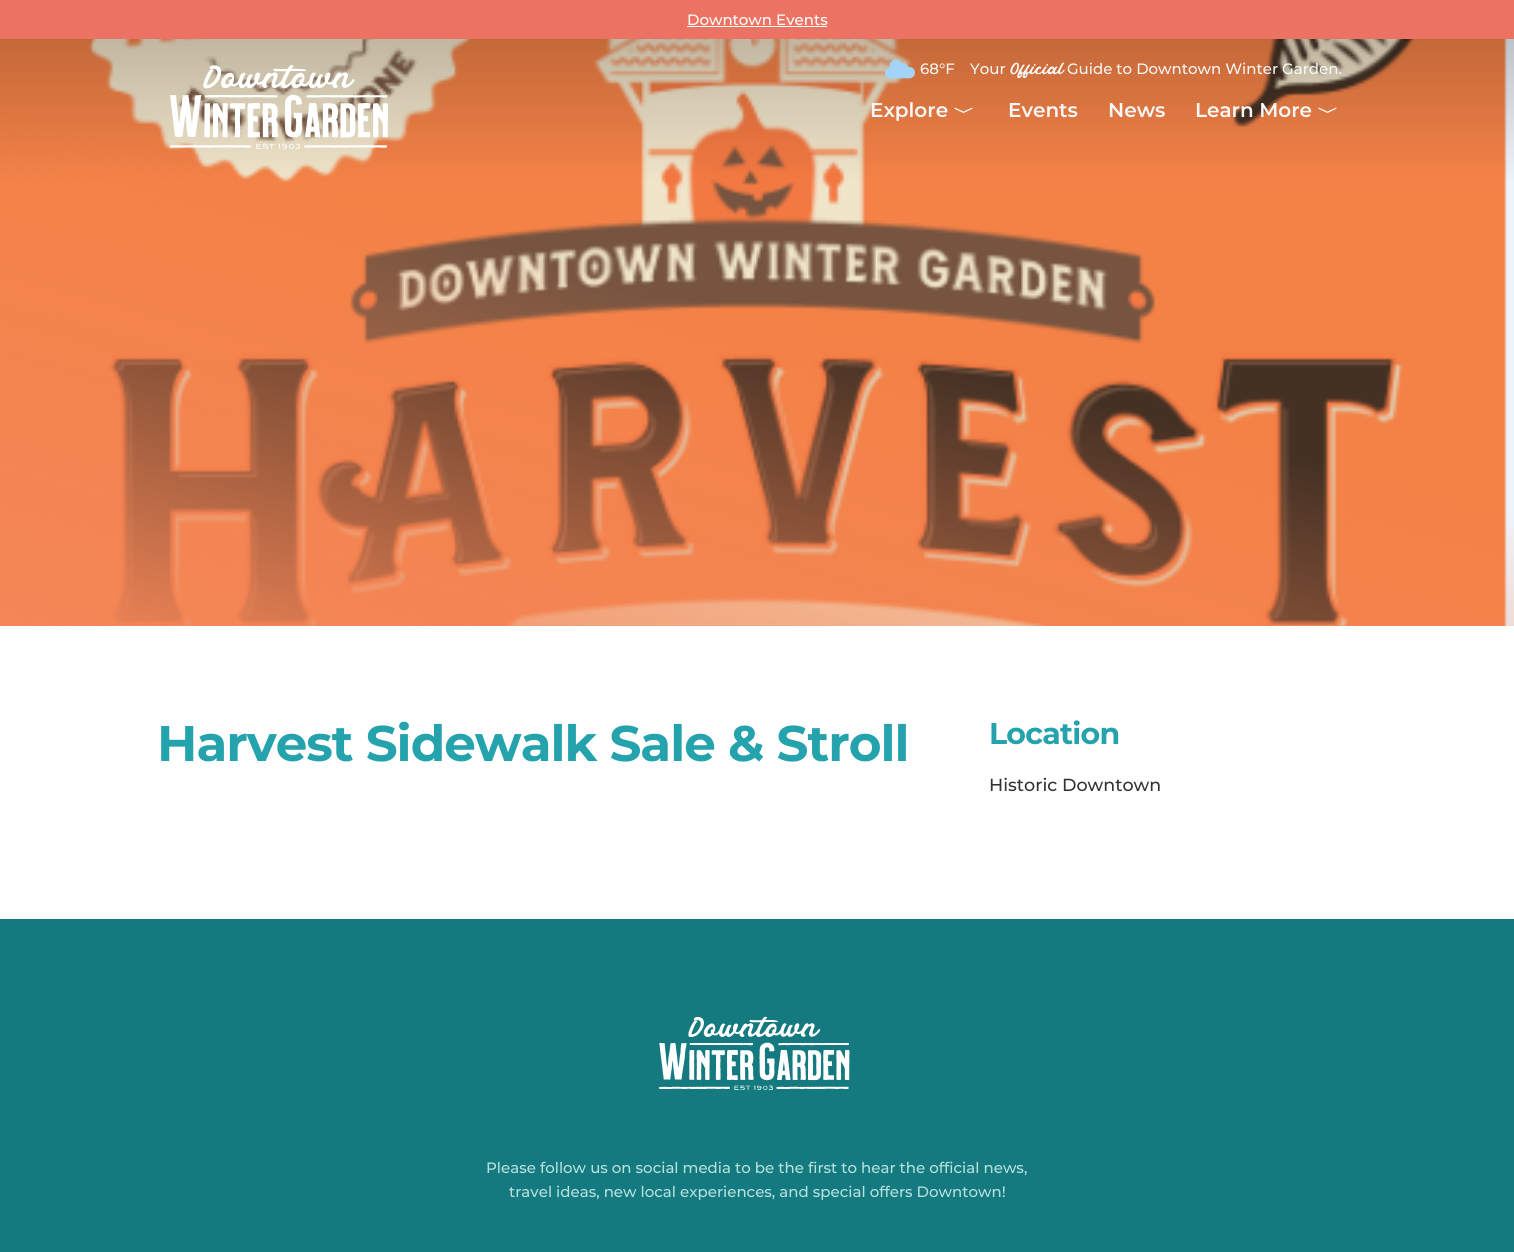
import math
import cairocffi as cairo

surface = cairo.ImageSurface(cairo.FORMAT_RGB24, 1514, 1252)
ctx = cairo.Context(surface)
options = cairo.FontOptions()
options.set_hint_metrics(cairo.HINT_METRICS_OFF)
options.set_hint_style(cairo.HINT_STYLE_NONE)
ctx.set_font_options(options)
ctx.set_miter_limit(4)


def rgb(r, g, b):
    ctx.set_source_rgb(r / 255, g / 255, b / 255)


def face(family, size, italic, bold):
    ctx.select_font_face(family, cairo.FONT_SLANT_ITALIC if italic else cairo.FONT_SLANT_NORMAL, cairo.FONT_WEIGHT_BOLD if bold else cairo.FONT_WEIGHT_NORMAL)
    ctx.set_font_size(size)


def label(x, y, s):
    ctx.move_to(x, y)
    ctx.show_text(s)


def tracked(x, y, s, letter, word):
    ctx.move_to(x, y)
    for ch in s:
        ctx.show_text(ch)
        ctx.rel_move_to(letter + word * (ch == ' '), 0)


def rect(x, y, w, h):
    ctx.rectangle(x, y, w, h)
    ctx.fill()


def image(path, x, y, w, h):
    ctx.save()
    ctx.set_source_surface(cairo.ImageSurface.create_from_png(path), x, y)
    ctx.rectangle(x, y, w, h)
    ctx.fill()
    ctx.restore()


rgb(255, 255, 255)
ctx.paint()
rgb(236, 115, 99)
rect(0, 0, 1514, 39)
face('Montserrat Medium', 15, 0, 0)
rgb(255, 255, 255)
label(687, 25, 'Downtown Events')
rect(687, 26, 140, 1)
image('image2.png', 0, 39, 1514, 587)
image('image0.png', 169, 65, 219, 84)
image('image1.png', 885, 59, 30, 20)
rgb(247, 247, 247)
label(920, 74, '68°F')
label(970, 74, 'Your')
face('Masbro', 15, 0, 0)
label(1010, 74, 'Official')
face('Montserrat Medium', 15, 0, 0)
label(1067, 74, 'Guide to Downtown Winter Garden.')
face('Montserrat SemiBold', 20, 0, 0)
label(870, 117, 'Explore')
face('WenQuanYi Zen Hei', 20, 0, 1)
ctx.save()
ctx.translate(956, 105)
ctx.rotate(90 * math.pi / 180)
label(0, 0, '〉')
ctx.restore()
face('Montserrat SemiBold', 20, 0, 0)
label(1008, 117, 'Events')
label(1108, 117, 'News')
label(1195, 117, 'Learn More')
face('WenQuanYi Zen Hei', 20, 0, 1)
ctx.save()
ctx.translate(1320, 105)
ctx.rotate(90 * math.pi / 180)
label(0, 0, '〉')
ctx.restore()
face('Montserrat', 50, 0, 1)
rgb(36, 163, 173)
tracked(157, 761, 'Harvest Sidewalk Sale & Stroll', -1, 0)
face('Montserrat', 30, 0, 1)
tracked(989, 744, 'Location', -0.75, 0)
face('Montserrat Medium', 17.5, 0, 0)
rgb(51, 51, 51)
label(989, 791, 'Historic Downtown')
rgb(21, 122, 127)
rect(0, 919, 1514, 333)
image('image3.png', 659, 1016, 191, 74)
face('Montserrat Medium', 15, 0, 0)
rgb(181, 225, 223)
label(486, 1173, 'Please follow us on social media to be the first to hear the official news,')
label(509, 1197, 'travel ideas, new local experiences, and special offers Downtown!')
surface.write_to_png('render.png')
